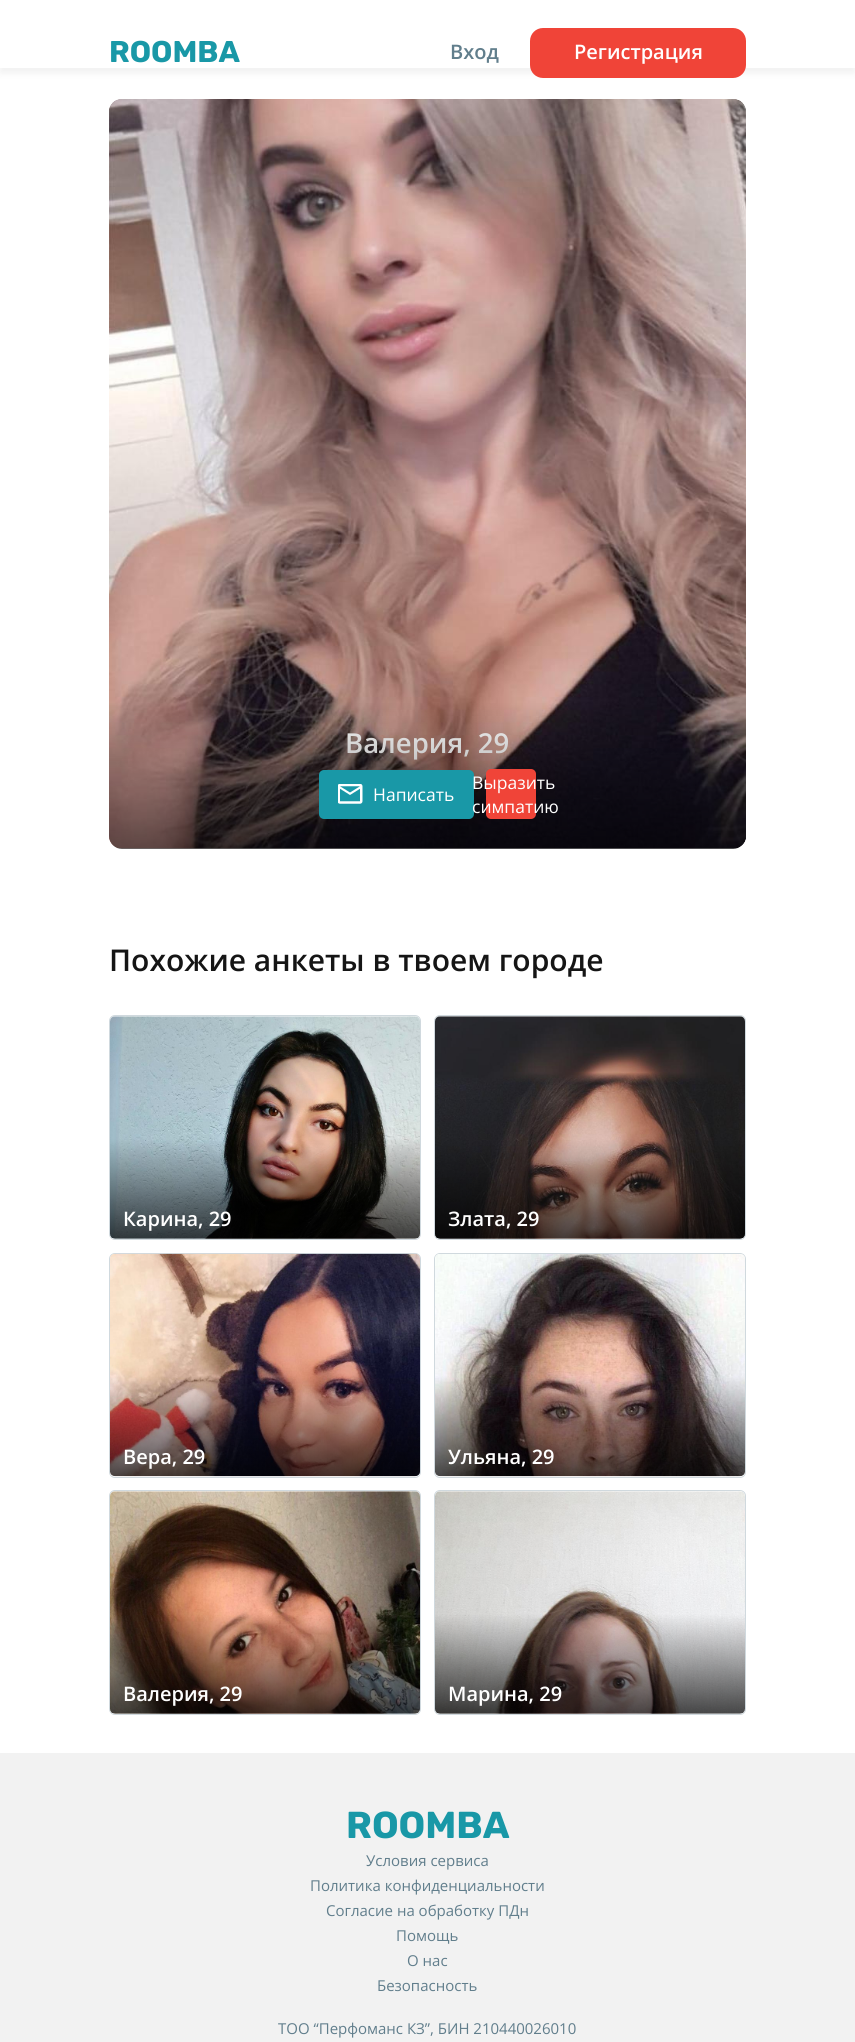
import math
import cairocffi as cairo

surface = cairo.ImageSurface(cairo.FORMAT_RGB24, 855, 2042)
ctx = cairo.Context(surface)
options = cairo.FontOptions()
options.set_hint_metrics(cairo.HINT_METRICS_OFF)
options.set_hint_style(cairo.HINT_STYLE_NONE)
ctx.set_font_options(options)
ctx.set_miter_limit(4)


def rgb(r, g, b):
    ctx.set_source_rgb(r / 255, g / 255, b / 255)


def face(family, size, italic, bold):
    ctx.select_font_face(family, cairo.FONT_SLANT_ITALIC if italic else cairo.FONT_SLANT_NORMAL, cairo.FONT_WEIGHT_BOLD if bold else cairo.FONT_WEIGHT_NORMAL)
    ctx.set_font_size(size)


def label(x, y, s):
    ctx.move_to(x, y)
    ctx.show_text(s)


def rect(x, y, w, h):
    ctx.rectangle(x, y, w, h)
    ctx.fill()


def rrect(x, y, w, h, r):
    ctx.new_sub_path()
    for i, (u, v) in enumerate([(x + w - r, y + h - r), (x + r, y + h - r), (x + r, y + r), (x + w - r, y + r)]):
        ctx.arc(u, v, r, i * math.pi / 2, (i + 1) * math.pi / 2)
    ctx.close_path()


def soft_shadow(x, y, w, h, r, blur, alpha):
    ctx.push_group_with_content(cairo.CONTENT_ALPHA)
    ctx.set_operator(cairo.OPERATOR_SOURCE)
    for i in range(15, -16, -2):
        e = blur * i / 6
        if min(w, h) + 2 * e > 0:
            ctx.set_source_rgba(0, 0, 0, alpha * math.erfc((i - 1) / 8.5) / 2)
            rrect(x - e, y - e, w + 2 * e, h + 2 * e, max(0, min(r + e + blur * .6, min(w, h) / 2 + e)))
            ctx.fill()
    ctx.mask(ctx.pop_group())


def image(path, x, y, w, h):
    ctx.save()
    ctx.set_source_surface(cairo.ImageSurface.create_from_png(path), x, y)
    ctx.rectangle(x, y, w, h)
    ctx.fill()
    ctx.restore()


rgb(242, 242, 242)
ctx.paint()
rgb(255, 255, 255)
rect(0, 68, 855, 1685)
rgb(0, 0, 0)
soft_shadow(0, 5, 855, 68, 0, 4, 0.06)
rgb(255, 255, 255)
rect(0, 0, 855, 68)
face('Rubik Light', 30, 0, 0)
rgb(25, 152, 167)
label(109, 62, 'ROOMBA')
face('Open Sans SemiBold', 20, 0, 0)
rgb(97, 126, 140)
label(450, 59, 'Вход')
rgb(240, 68, 56)
rrect(530, 28, 216, 50, 13)
ctx.fill()
rgb(255, 255, 255)
label(574, 59, 'Регистрация')
rgb(242, 242, 242)
rrect(109, 99, 637, 750, 13)
ctx.fill()
image('image0.png', 109, 99, 637, 750)
face('Open Sans SemiBold', 27.5, 0, 0)
rgb(255, 255, 255)
label(345, 753, 'Валерия, 29')
gradient = cairo.LinearGradient(428, 699, 428, 849)
gradient.add_color_stop_rgba(0.02, 0, 0, 0, 0)
gradient.add_color_stop_rgba(1, 0, 0, 0, 0.55)
ctx.set_source(gradient)
ctx.new_path()
ctx.move_to(109, 699)
ctx.line_to(746, 699)
ctx.line_to(746, 836)
ctx.curve_to(746, 843, 740, 849, 733, 849)
ctx.line_to(122, 849)
ctx.curve_to(115, 849, 109, 843, 109, 836)
ctx.close_path()
ctx.fill()
rgb(25, 152, 167)
rrect(319, 770, 155, 49, 5)
ctx.fill()
image('image1.png', 338, 784, 25, 20)
face('Open Sans', 17.5, 0, 0)
rgb(255, 255, 255)
label(373, 801, 'Написать')
rgb(240, 68, 56)
rrect(486, 769, 50, 50, 5)
ctx.fill()
rgb(255, 255, 255)
label(472, 789, 'Выразить')
label(472, 813, 'симпатию')
face('Open Sans SemiBold', 30, 0, 0)
rgb(21, 21, 21)
label(109, 971, 'Похожие анкеты в твоем городе')
rrect(109.5, 1015.5, 311, 224, 5.5)
rgb(208, 217, 222)
ctx.set_line_width(1)
ctx.stroke()
image('image2.png', 110, 1016, 310, 223)
face('Open Sans SemiBold', 20, 0, 0)
rgb(255, 255, 255)
label(123, 1226, 'Карина, 29')
rrect(434.5, 1015.5, 311, 224, 5.5)
rgb(208, 217, 222)
ctx.stroke()
image('image3.png', 435, 1016, 310, 223)
rgb(255, 255, 255)
label(448, 1226, 'Злата, 29')
rrect(109.5, 1253.5, 311, 224, 5.5)
rgb(208, 217, 222)
ctx.stroke()
image('image4.png', 110, 1253, 310, 224)
rgb(255, 255, 255)
label(123, 1464, 'Вера, 29')
rrect(434.5, 1253.5, 311, 224, 5.5)
rgb(208, 217, 222)
ctx.stroke()
image('image5.png', 435, 1254, 310, 223)
rgb(255, 255, 255)
label(448, 1464, 'Ульяна, 29')
rrect(109.5, 1490.5, 311, 224, 5.5)
rgb(208, 217, 222)
ctx.stroke()
image('image6.png', 110, 1491, 310, 223)
rgb(255, 255, 255)
label(123, 1701, 'Валерия, 29')
rrect(434.5, 1490.5, 311, 224, 5.5)
rgb(208, 217, 222)
ctx.stroke()
image('image7.png', 435, 1491, 310, 223)
rgb(255, 255, 255)
label(448, 1701, 'Марина, 29')
face('Rubik Light', 37.5, 0, 0)
rgb(25, 152, 167)
label(346, 1838, 'ROOMBA')
face('Open Sans', 15, 0, 0)
rgb(97, 126, 140)
label(366, 1866, 'Условия сервиса')
label(310, 1891, 'Политика конфиденциальности')
label(326, 1916, 'Согласие на обработку ПДн')
label(396, 1941, 'Помощь')
label(407, 1966, 'О нас')
label(377, 1991, 'Безопасность')
label(278, 2034, 'ТОО “Перфоманс КЗ”, БИН 210440026010')
surface.write_to_png('render.png')
